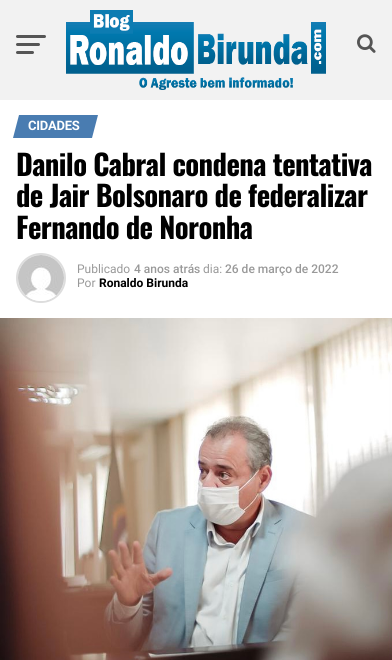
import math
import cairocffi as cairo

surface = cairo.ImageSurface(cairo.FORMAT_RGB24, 392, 660)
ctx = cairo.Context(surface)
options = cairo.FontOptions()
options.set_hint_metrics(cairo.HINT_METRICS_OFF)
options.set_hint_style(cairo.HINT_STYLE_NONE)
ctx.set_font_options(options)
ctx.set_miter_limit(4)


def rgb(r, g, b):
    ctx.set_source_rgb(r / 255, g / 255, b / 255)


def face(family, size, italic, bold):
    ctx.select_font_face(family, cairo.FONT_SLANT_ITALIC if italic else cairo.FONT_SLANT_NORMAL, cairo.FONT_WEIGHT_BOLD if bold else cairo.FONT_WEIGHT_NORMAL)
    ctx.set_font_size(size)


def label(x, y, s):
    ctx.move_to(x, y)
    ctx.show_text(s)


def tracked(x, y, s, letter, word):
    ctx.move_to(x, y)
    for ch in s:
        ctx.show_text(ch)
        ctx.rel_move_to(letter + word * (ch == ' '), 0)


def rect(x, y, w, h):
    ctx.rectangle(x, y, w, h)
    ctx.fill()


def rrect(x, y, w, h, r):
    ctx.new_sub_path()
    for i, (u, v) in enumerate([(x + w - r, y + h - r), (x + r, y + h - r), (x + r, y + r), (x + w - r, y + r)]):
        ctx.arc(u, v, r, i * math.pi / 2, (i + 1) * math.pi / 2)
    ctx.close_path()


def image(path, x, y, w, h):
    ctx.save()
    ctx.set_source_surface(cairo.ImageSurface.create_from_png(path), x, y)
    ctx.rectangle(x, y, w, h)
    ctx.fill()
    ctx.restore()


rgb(255, 255, 255)
ctx.paint()
rgb(242, 242, 242)
rect(0, 0, 392, 100)
rgb(85, 85, 85)
rrect(16, 35, 30, 3, 1.5)
ctx.fill()
rrect(16, 43, 24, 3, 1.5)
ctx.fill()
rrect(16, 51, 18, 3, 1.5)
ctx.fill()
image('image0.png', 66, 10, 260, 80)
image('image1.png', 357, 34, 19, 19)
rgb(73, 124, 177)
ctx.new_path()
ctx.move_to(19, 115)
ctx.line_to(98, 115)
ctx.line_to(92, 138)
ctx.line_to(13, 138)
ctx.close_path()
ctx.fill()
face('Roboto', 13, 0, 1)
rgb(255, 255, 255)
tracked(28, 130, 'CIDADES', -0.25, 0)
face('Oswald', 28.75, 0, 1)
rgb(0, 0, 0)
tracked(16, 176, 'Danilo Cabral condena tentativa', -0.6, 0)
tracked(16, 207, 'de Jair Bolsonaro de federalizar', -0.6, 0)
tracked(16, 239, 'Fernando de Noronha', -0.6, 0)
ctx.new_path()
ctx.arc(41, 278, 24, 0, 2 * math.pi)
rgb(221, 221, 221)
ctx.stroke()
image('image2.png', 18, 255, 46, 46)
face('Roboto', 12, 0, 0)
rgb(153, 153, 153)
label(77, 273, 'Publicado')
face('Roboto Medium', 12, 0, 0)
label(134, 273, '4 anos atrás')
face('Roboto', 12, 0, 0)
label(203, 273, 'dia:')
face('Roboto Medium', 12, 0, 0)
label(225, 273, '26 de março de 2022')
face('Roboto', 12, 0, 0)
label(77, 287, 'Por')
face('Roboto', 12, 0, 1)
rgb(0, 0, 0)
label(99, 287, 'Ronaldo Birunda')
image('image3.png', 0, 318, 392, 342)
surface.write_to_png('render.png')
